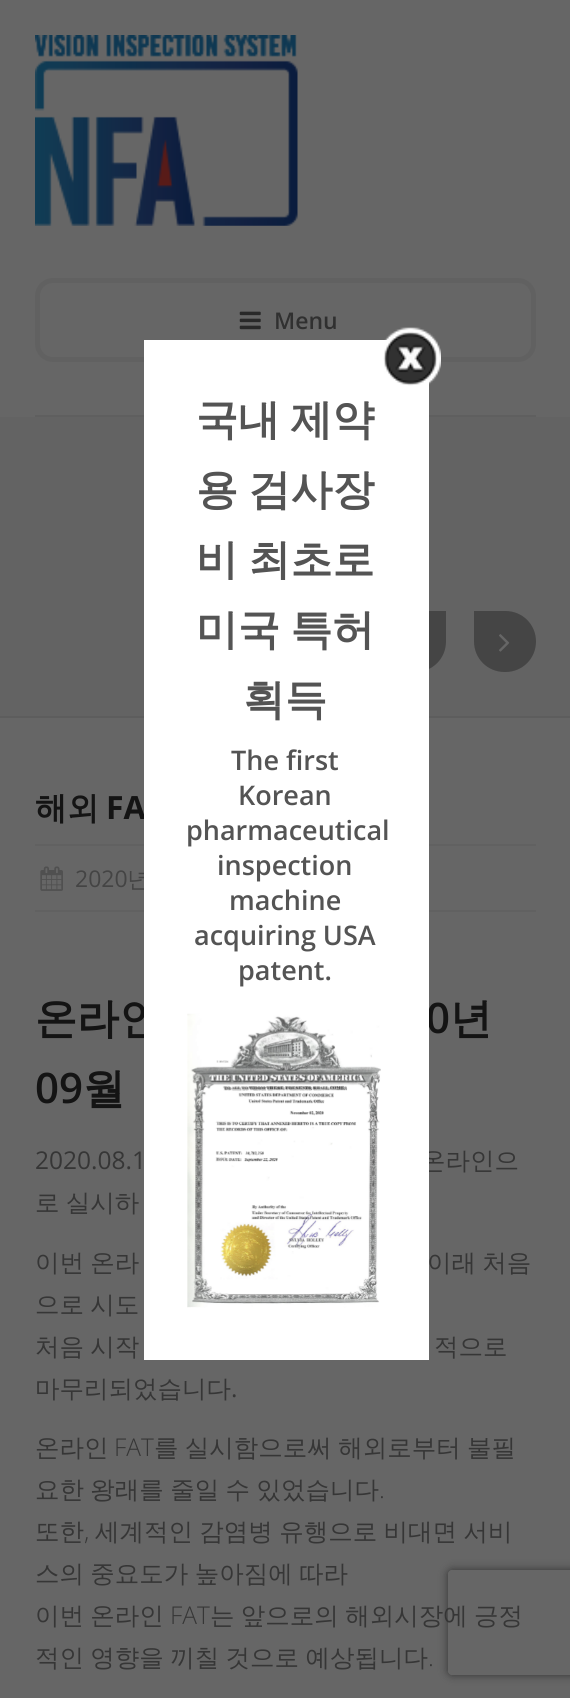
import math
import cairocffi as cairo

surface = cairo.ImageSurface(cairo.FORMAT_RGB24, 570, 1698)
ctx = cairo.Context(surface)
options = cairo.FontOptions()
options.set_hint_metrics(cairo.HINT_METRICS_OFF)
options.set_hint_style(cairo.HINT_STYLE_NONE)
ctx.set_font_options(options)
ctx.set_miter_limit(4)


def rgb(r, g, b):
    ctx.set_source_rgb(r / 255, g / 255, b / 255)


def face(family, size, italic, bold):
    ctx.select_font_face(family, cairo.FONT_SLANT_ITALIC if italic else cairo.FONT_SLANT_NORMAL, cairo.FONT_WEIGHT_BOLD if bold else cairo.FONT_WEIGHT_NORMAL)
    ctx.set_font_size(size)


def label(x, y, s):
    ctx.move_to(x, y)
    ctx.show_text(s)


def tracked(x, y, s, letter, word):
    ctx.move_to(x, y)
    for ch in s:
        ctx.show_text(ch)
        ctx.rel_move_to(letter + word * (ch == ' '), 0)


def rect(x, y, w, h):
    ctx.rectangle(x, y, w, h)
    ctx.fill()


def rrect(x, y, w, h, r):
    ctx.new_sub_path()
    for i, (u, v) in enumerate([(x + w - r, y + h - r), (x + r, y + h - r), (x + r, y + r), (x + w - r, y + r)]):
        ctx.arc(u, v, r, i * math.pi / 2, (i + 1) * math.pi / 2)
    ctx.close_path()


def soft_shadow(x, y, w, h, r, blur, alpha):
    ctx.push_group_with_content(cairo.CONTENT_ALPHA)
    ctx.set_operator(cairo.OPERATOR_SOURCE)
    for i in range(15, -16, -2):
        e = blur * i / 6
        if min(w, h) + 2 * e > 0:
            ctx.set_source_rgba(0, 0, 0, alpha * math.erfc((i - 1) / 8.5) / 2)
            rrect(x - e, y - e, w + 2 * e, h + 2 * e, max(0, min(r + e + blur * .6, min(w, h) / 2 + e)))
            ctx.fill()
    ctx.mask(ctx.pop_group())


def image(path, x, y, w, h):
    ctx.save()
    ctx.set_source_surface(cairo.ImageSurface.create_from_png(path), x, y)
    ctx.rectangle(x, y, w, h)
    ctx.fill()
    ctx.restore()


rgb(102, 102, 102)
ctx.paint()
image('image0.png', 35, 35, 263, 191)
rrect(37.5, 280.5, 496, 79, 15.5)
rgb(97, 97, 97)
ctx.set_line_width(5)
ctx.stroke()
image('image1.png', 239, 311, 22, 19)
face('Open Sans SemiBold', 23, 0, 0)
rgb(48, 48, 48)
label(274, 329, 'Menu')
rgb(95, 95, 95)
rect(35, 415, 501, 2)
rgb(99, 99, 99)
rect(0, 417, 570, 299)
rgb(93, 93, 93)
rect(0, 716, 570, 2)
rgb(69, 69, 69)
ctx.new_path()
ctx.move_to(415.5, 611)
ctx.line_to(446, 611)
ctx.line_to(446, 641.5)
ctx.curve_to(446, 658.5, 432.5, 672, 415.5, 672)
ctx.curve_to(398.5, 672, 385, 658.5, 385, 641.5)
ctx.curve_to(385, 624.5, 398.5, 611, 415.5, 611)
ctx.close_path()
ctx.fill()
face('Open Sans', 32, 0, 1)
rgb(20, 20, 20)
label(106, 819, 'FA')
rgb(97, 97, 97)
rect(35, 844, 501, 2)
rect(35, 910, 501, 2)
face('WenQuanYi Zen Hei Medium', 23, 0, 0)
rgb(68, 68, 68)
label(127, 887, '년')
face('WenQuanYi Zen Hei', 42, 0, 1)
rgb(20, 20, 20)
label(35, 1033, '온라인')
face('Open Sans SemiBold', 42, 0, 0)
label(426, 1033, '0')
face('WenQuanYi Zen Hei Medium', 24.5, 0, 0)
rgb(54, 54, 54)
label(421, 1169, '온라인으')
rgb(255, 255, 255)
rect(144, 340, 285, 1020)
image('image2.png', 383, 327, 58, 59)
face('WenQuanYi Zen Hei', 42, 0, 1)
rgb(84, 84, 84)
tracked(196, 434, '국내 제약', 0, -2)
tracked(196, 504, '용 검사장', 0, -2)
tracked(196, 574, '비 최초로', 0, -2)
tracked(196, 644, '미국 특허', 0, -2)
label(243, 714, '획득')
face('Open Sans SemiBold', 27, 0, 0)
label(231, 770, 'The first')
label(238, 805, 'Korean')
label(186, 840, 'pharmaceutical')
label(217, 875, 'inspection')
label(229, 910, 'machine')
label(194, 945, 'acquiring USA')
label(238, 980, 'patent.')
image('image3.png', 187, 1013, 194, 295)
rgb(69, 69, 69)
ctx.new_path()
ctx.move_to(474, 611)
ctx.line_to(505.5, 611)
ctx.curve_to(522.5, 611, 536, 624.5, 536, 641.5)
ctx.curve_to(536, 658.5, 522.5, 672, 505.5, 672)
ctx.line_to(504.5, 672)
ctx.curve_to(487.5, 672, 474, 658.5, 474, 641.5)
ctx.close_path()
ctx.fill()
image('image4.png', 499, 634, 11, 18)
face('WenQuanYi Zen Hei', 32, 0, 1)
rgb(20, 20, 20)
label(35, 819, '해외')
image('image5.png', 40, 866, 23, 25)
face('Open Sans', 23, 0, 0)
rgb(68, 68, 68)
label(75, 887, '2020')
face('WenQuanYi Zen Hei', 42, 0, 1)
rgb(20, 20, 20)
label(450, 1033, '년')
face('Open Sans SemiBold', 42, 0, 0)
label(35, 1103, '09')
face('WenQuanYi Zen Hei', 42, 0, 1)
tracked(83, 1103, '월', 0, -2)
face('Open Sans', 24.5, 0, 0)
rgb(54, 54, 54)
label(35, 1169, '2020.08.1')
face('WenQuanYi Zen Hei Medium', 24.5, 0, 0)
tracked(35, 1211, '로 실시하', 0, -1)
tracked(35, 1271, '이번 온라', 0, -1)
tracked(427, 1271, '이래 처음', 0, -1)
tracked(35, 1313, '으로 시도', 0, -1)
tracked(35, 1355, '처음 시작', 0, -1)
tracked(434, 1355, '적으로', 0, -1)
label(35, 1397, '마무리되었습니다')
face('Open Sans', 24.5, 0, 0)
label(231, 1397, '.')
face('WenQuanYi Zen Hei Medium', 24.5, 0, 0)
label(35, 1456, '온라인')
face('Open Sans Light', 24.5, 0, 0)
label(114, 1456, 'FAT')
face('WenQuanYi Zen Hei Medium', 24.5, 0, 0)
tracked(154, 1456, '를 실시함으로써 해외로부터 불필', 0, -1)
tracked(35, 1498, '요한 왕래를 줄일 수 있었습니다', 0, -1)
face('Open Sans Light', 24.5, 0, 0)
label(379, 1498, '.')
face('WenQuanYi Zen Hei Medium', 24.5, 0, 0)
label(35, 1540, '또한')
face('Open Sans Light', 24.5, 0, 0)
label(84, 1540, ',')
face('WenQuanYi Zen Hei Medium', 24.5, 0, 0)
tracked(95, 1540, '세계적인 감염병 유행으로 비대면 서비', 0, -1)
tracked(35, 1582, '스의 중요도가 높아짐에 따라', 0, -1)
tracked(35, 1624, '이번 온라인', 0, -1)
face('Open Sans Light', 24.5, 0, 0)
label(170, 1624, 'FAT')
face('WenQuanYi Zen Hei Medium', 24.5, 0, 0)
tracked(210, 1624, '는 앞으로의 해외시장에 긍정', 0, -1)
tracked(35, 1666, '적인 영향을 끼칠 것으로 예상됩니다', 0, -1)
face('Open Sans Light', 24.5, 0, 0)
label(428, 1666, '.')
ctx.save()
ctx.set_fill_rule(cairo.FILL_RULE_EVEN_ODD)
ctx.new_path()
ctx.move_to(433, 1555)
ctx.line_to(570, 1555)
ctx.line_to(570, 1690)
ctx.line_to(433, 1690)
ctx.close_path()
ctx.move_to(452, 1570)
ctx.line_to(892, 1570)
ctx.curve_to(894, 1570, 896, 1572, 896, 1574)
ctx.line_to(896, 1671)
ctx.curve_to(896, 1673, 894, 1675, 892, 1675)
ctx.line_to(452, 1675)
ctx.curve_to(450, 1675, 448, 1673, 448, 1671)
ctx.line_to(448, 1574)
ctx.curve_to(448, 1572, 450, 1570, 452, 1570)
ctx.close_path()
ctx.clip()
rgb(51, 51, 51)
soft_shadow(448, 1570, 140, 105, 4, 4.5, 1)
ctx.restore()
surface.write_to_png('render.png')
